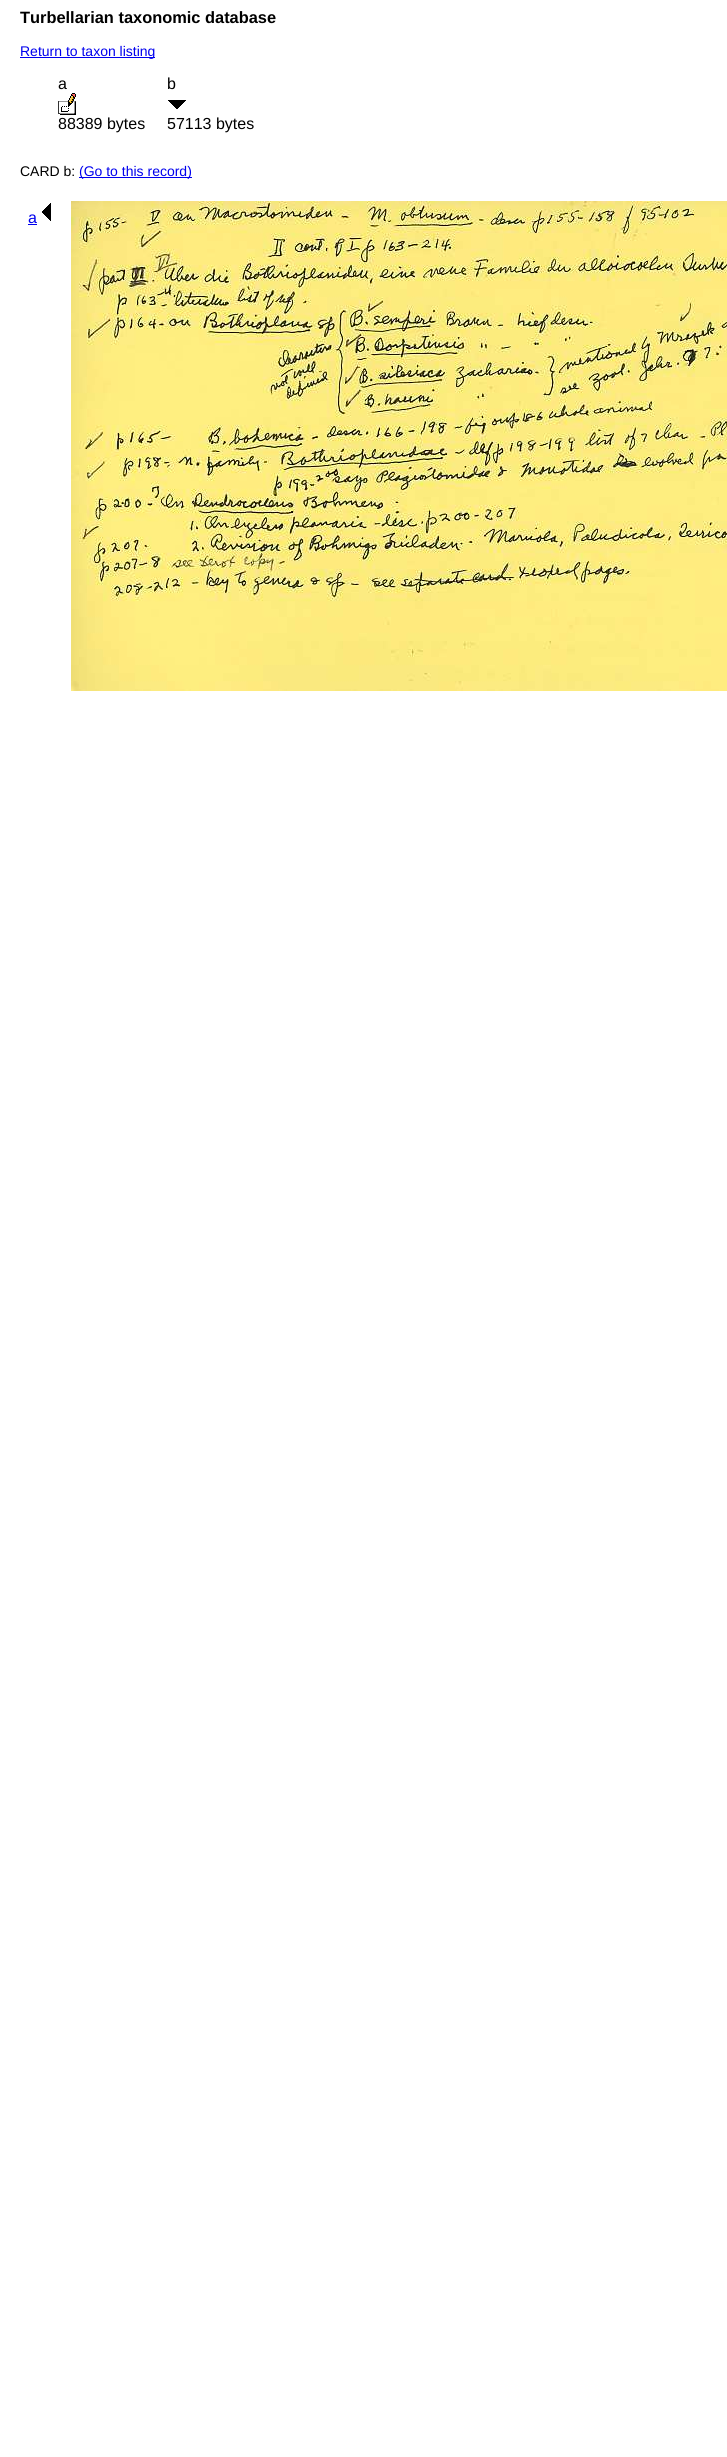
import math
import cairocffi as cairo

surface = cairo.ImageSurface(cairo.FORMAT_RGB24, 727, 2457)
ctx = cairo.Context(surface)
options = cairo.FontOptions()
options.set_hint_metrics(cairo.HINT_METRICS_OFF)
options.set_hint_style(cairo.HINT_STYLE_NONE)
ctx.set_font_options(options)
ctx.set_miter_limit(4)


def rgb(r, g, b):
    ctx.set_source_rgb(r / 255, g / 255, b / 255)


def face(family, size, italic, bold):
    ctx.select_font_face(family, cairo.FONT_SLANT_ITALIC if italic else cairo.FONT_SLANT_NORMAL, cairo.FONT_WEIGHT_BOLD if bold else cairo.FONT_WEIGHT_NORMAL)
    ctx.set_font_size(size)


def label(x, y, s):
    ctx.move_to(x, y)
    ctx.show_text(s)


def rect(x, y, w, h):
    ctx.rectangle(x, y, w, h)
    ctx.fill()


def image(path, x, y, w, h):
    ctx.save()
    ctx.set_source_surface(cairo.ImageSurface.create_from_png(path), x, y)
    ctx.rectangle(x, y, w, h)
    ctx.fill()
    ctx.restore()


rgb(255, 255, 255)
ctx.paint()
face('Liberation Sans', 16.4, 0, 1)
rgb(0, 0, 0)
label(20, 23, 'Turbellarian taxonomic database')
rgb(0, 0, 238)
rect(20, 57, 135, 1)
face('Liberation Sans', 14, 0, 0)
label(20, 56, 'Return to taxon listing')
face('Liberation Sans', 16, 0, 0)
rgb(0, 0, 0)
label(58, 89, 'a')
image('image0.png', 58, 93, 18, 22)
label(58, 129, '88389 bytes')
label(167, 89, 'b')
image('image1.png', 168, 100, 18, 9)
label(167, 129, '57113 bytes')
face('Liberation Sans', 14, 0, 0)
label(20, 176, 'CARD b:')
rgb(0, 0, 238)
rect(79, 177, 113, 1)
label(79, 176, '(Go to this record)')
face('Liberation Sans', 16, 0, 0)
label(28, 223, 'a')
rect(28, 224, 9, 1)
image('image2.png', 42, 203, 9, 18)
image('image3.png', 71, 201, 656, 490)
surface.write_to_png('render.png')
